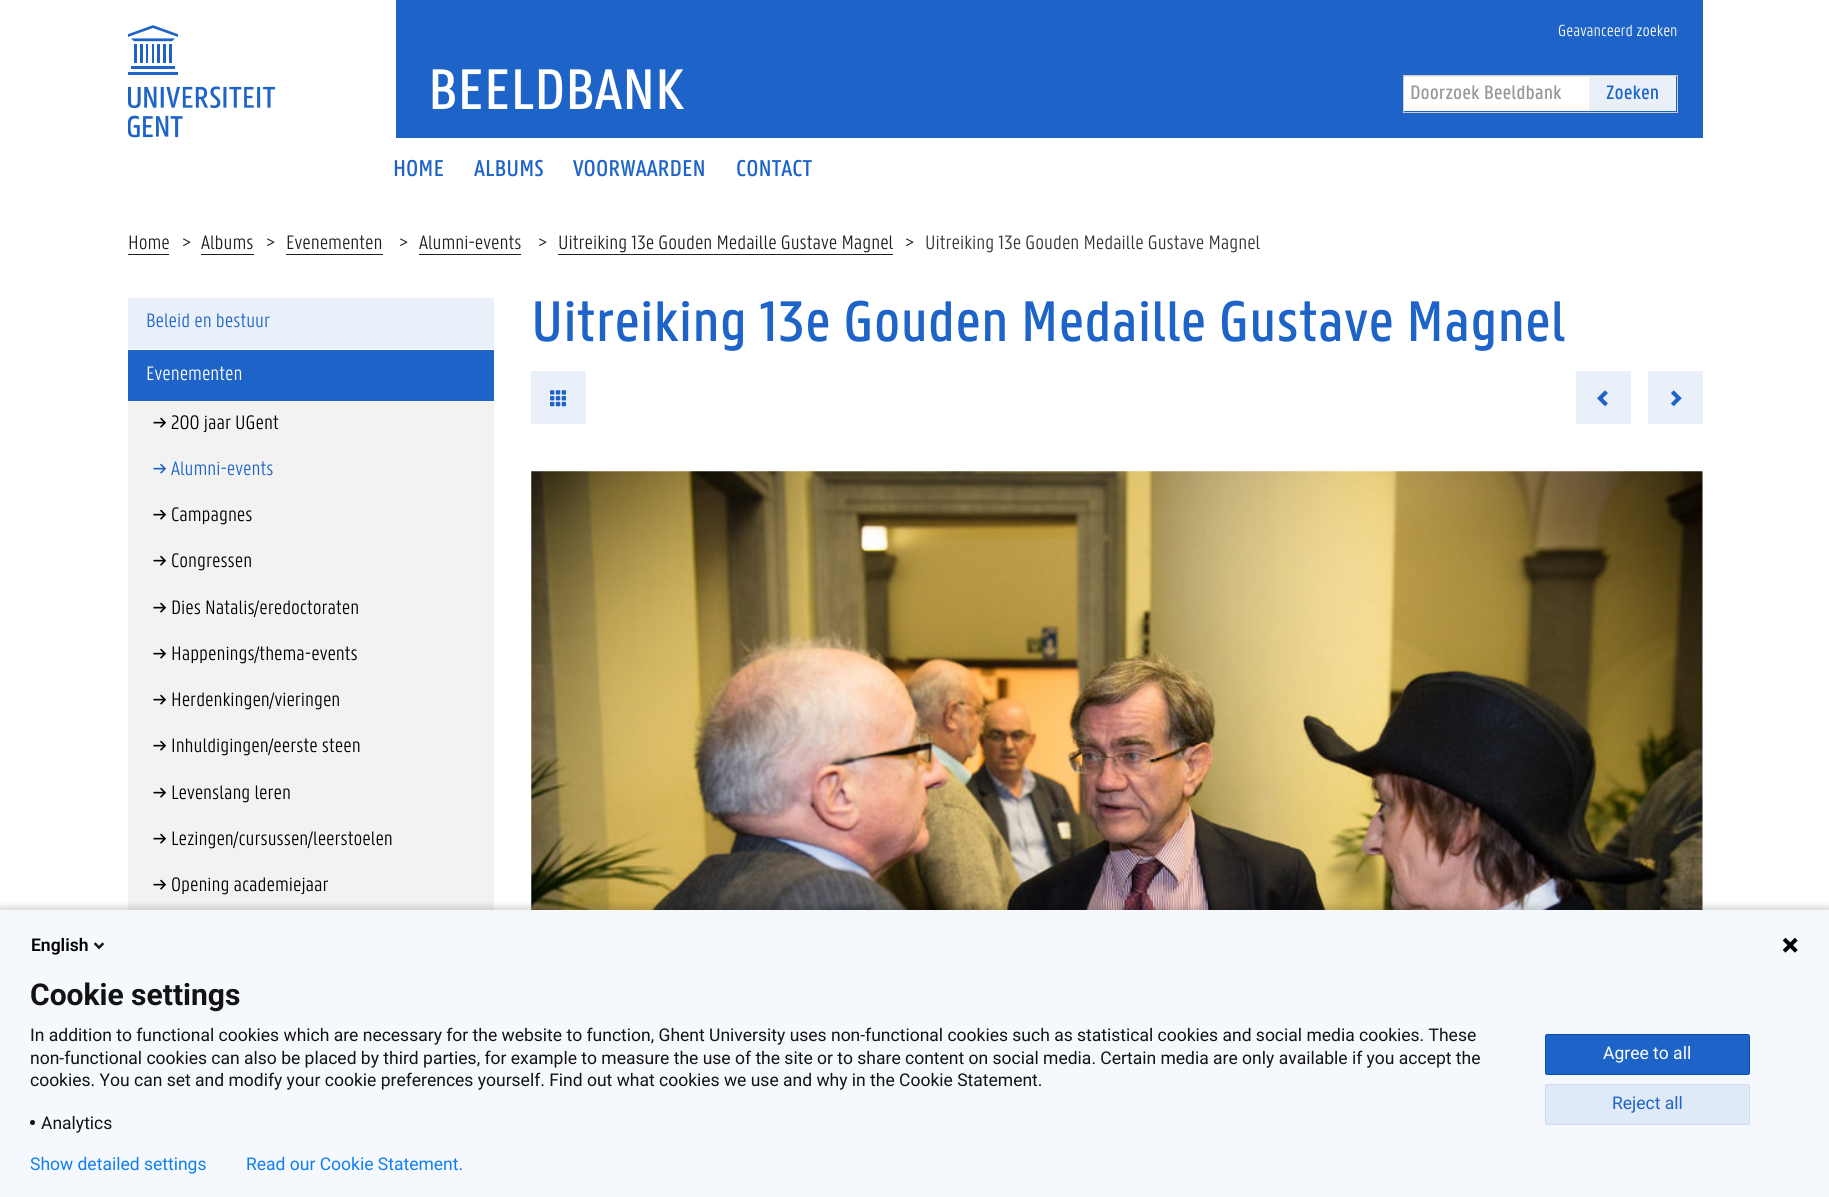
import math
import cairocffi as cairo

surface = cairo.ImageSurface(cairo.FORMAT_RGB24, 1829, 1197)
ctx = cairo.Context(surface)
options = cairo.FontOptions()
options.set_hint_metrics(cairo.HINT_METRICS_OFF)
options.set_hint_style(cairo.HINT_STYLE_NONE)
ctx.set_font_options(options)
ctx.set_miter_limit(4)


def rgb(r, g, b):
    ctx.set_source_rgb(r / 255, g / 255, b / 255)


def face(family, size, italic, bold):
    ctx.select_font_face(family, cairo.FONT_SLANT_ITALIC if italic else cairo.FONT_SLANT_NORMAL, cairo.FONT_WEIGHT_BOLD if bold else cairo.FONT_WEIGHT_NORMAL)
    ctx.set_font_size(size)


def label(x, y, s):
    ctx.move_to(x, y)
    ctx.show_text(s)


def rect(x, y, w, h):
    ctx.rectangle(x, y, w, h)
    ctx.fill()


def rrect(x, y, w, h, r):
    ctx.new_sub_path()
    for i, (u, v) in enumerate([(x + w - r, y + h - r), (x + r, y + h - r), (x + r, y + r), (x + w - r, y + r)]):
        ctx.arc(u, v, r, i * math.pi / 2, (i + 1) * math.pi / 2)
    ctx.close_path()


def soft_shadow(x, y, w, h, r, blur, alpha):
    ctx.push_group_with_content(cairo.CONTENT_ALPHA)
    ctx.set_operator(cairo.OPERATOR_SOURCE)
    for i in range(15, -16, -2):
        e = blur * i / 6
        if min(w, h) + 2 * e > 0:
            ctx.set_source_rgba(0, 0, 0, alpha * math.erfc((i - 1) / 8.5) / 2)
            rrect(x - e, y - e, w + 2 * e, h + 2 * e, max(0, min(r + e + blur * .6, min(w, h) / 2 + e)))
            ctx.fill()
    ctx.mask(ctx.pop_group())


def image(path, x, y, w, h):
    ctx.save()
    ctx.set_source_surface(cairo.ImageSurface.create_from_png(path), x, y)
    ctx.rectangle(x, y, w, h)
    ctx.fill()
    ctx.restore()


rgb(255, 255, 255)
ctx.paint()
image('image0.png', 128, 25, 147, 113)
rgb(30, 100, 200)
rect(396, 0, 1307, 138)
face('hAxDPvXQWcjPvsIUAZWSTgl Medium', 62.5, 0, 0)
rgb(255, 255, 255)
label(428, 109, 'BEELDBANK')
face('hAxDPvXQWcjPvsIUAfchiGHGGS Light', 17.5, 0, 0)
label(1558, 36, 'Geavanceerd zoeken')
ctx.rectangle(1403.5, 75.5, 274, 37)
rgb(204, 204, 204)
ctx.set_line_width(1)
ctx.stroke()
rgb(255, 255, 255)
rect(1404, 77, 185, 34)
rgb(236, 236, 236)
rect(1404, 76, 185, 1)
face('hAxDPvXQWcjPvsIUAZWSTgl Medium', 21.25, 0, 0)
rgb(153, 153, 153)
label(1410, 99, 'Doorzoek Beeldbank')
rgb(233, 240, 250)
rect(1589, 76, 87, 35)
rgb(30, 100, 200)
label(1606, 99, 'Zoeken')
face('hAxDPvXQWcjPvsIUAZWSTgl Medium', 25, 0, 0)
label(393, 176, 'HOME')
label(474, 176, 'ALBUMS')
label(573, 176, 'VOORWAARDEN')
label(736, 176, 'CONTACT')
face('hAxDPvXQWcjPvsIUAfchiGHGGS Light', 21.25, 0, 0)
rgb(32, 32, 32)
label(128, 249, 'Home')
rect(128, 254, 41, 1)
label(182, 249, '>')
label(201, 249, 'Albums')
rect(201, 254, 53, 1)
label(266, 249, '>')
label(286, 249, 'Evenementen')
rect(286, 254, 97, 1)
label(399, 249, '>')
label(419, 249, 'Alumni-events')
rect(419, 254, 102, 1)
label(538, 249, '>')
label(558, 249, 'Uitreiking 13e Gouden Medaille Gustave Magnel')
rect(558, 254, 335, 1)
label(905, 249, '>')
rgb(51, 51, 51)
label(925, 249, 'Uitreiking 13e Gouden Medaille Gustave Magnel')
rgb(233, 240, 250)
rect(128, 298, 366, 51)
rgb(30, 100, 200)
label(146, 327, 'Beleid en bestuur')
rect(128, 350, 366, 51)
rgb(255, 255, 255)
label(146, 380, 'Evenementen')
rgb(242, 242, 242)
rect(128, 401, 366, 509)
face('hAxDPvXQWcjPvsIUAZWSTgl Medium', 20, 0, 0)
rgb(0, 0, 0)
label(153, 429, '→')
face('hAxDPvXQWcjPvsIUAfchiGHGGS Light', 21.25, 0, 0)
label(171, 429, '200 jaar UGent')
face('hAxDPvXQWcjPvsIUAZWSTgl Medium', 20, 0, 0)
rgb(30, 100, 200)
label(153, 475, '→')
face('hAxDPvXQWcjPvsIUAfchiGHGGS Light', 21.25, 0, 0)
label(171, 475, 'Alumni-events')
face('hAxDPvXQWcjPvsIUAZWSTgl Medium', 20, 0, 0)
rgb(0, 0, 0)
label(153, 521, '→')
face('hAxDPvXQWcjPvsIUAfchiGHGGS Light', 21.25, 0, 0)
label(171, 521, 'Campagnes')
face('hAxDPvXQWcjPvsIUAZWSTgl Medium', 20, 0, 0)
label(153, 567, '→')
face('hAxDPvXQWcjPvsIUAfchiGHGGS Light', 21.25, 0, 0)
label(171, 567, 'Congressen')
face('hAxDPvXQWcjPvsIUAZWSTgl Medium', 20, 0, 0)
label(153, 614, '→')
face('hAxDPvXQWcjPvsIUAfchiGHGGS Light', 21.25, 0, 0)
label(171, 614, 'Dies Natalis/eredoctoraten')
face('hAxDPvXQWcjPvsIUAZWSTgl Medium', 20, 0, 0)
label(153, 660, '→')
face('hAxDPvXQWcjPvsIUAfchiGHGGS Light', 21.25, 0, 0)
label(171, 660, 'Happenings/thema-events')
face('hAxDPvXQWcjPvsIUAZWSTgl Medium', 20, 0, 0)
label(153, 706, '→')
face('hAxDPvXQWcjPvsIUAfchiGHGGS Light', 21.25, 0, 0)
label(171, 706, 'Herdenkingen/vieringen')
face('hAxDPvXQWcjPvsIUAZWSTgl Medium', 20, 0, 0)
label(153, 752, '→')
face('hAxDPvXQWcjPvsIUAfchiGHGGS Light', 21.25, 0, 0)
label(171, 752, 'Inhuldigingen/eerste steen')
face('hAxDPvXQWcjPvsIUAZWSTgl Medium', 20, 0, 0)
label(153, 799, '→')
face('hAxDPvXQWcjPvsIUAfchiGHGGS Light', 21.25, 0, 0)
label(171, 799, 'Levenslang leren')
face('hAxDPvXQWcjPvsIUAZWSTgl Medium', 20, 0, 0)
label(153, 845, '→')
face('hAxDPvXQWcjPvsIUAfchiGHGGS Light', 21.25, 0, 0)
label(171, 845, 'Lezingen/cursussen/leerstoelen')
face('hAxDPvXQWcjPvsIUAZWSTgl Medium', 20, 0, 0)
label(153, 891, '→')
face('hAxDPvXQWcjPvsIUAfchiGHGGS Light', 21.25, 0, 0)
label(171, 891, 'Opening academiejaar')
face('hAxDPvXQWcjPvsIUAZWSTgl Medium', 62.5, 0, 0)
rgb(30, 100, 200)
label(531, 341, 'Uitreiking 13e Gouden Medaille Gustave Magnel')
rgb(233, 240, 250)
rect(531, 371, 55, 53)
image('image1.png', 550, 390, 17, 17)
rect(1576, 371, 55, 53)
image('image2.png', 1597, 390, 11, 17)
rect(1648, 371, 55, 53)
image('image3.png', 1670, 390, 12, 17)
image('image4.png', 531, 471, 1172, 439)
rgb(0, 0, 0)
soft_shadow(-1, 906, 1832, 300, 0, 3, 0.14)
rgb(245, 248, 252)
rect(0, 910, 1829, 287)
face('Roboto SemiBold', 17.5, 0, 0)
rgb(0, 0, 0)
label(31, 951, 'English')
image('image5.png', 93, 942, 12, 8)
image('image6.png', 1782, 937, 16, 16)
face('Roboto', 30, 0, 1)
rgb(19, 19, 19)
label(30, 1005, 'Cookie settings')
face('Roboto', 17.5, 0, 0)
label(30, 1041, 'In addition to functional cookies which are necessary for the website to function, Ghent University uses non-functional cookies such as statistical cookies and social media cookies. These')
label(30, 1064, 'non-functional cookies can also be placed by third parties, for example to measure the use of the site or to share content on social media. Certain media are only available if you accept the')
label(30, 1086, 'cookies. You can set and modify your cookie preferences yourself. Find out what cookies we use and why in the Cookie Statement.')
ctx.new_path()
ctx.arc(32.5, 1122.5, 2.5, 0, 2 * math.pi)
ctx.fill()
label(41, 1129, 'Analytics')
rgb(30, 100, 200)
rrect(1545.5, 1034.5, 204, 40, 2)
ctx.fill_preserve()
rgb(11, 75, 179)
ctx.stroke()
rgb(255, 255, 255)
label(1603, 1059, 'Agree to all')
rgb(224, 233, 247)
rrect(1545, 1084, 205, 41, 2.5)
ctx.fill()
rrect(1545.5, 1084.5, 204, 40, 2)
ctx.set_source_rgba(0.118, 0.392, 0.784, 0.1)
ctx.stroke()
rgb(30, 100, 200)
label(1612, 1109, 'Reject all')
rgb(16, 126, 241)
label(30, 1170, 'Show detailed settings')
label(246, 1170, 'Read our Cookie Statement.')
surface.write_to_png('render.png')
